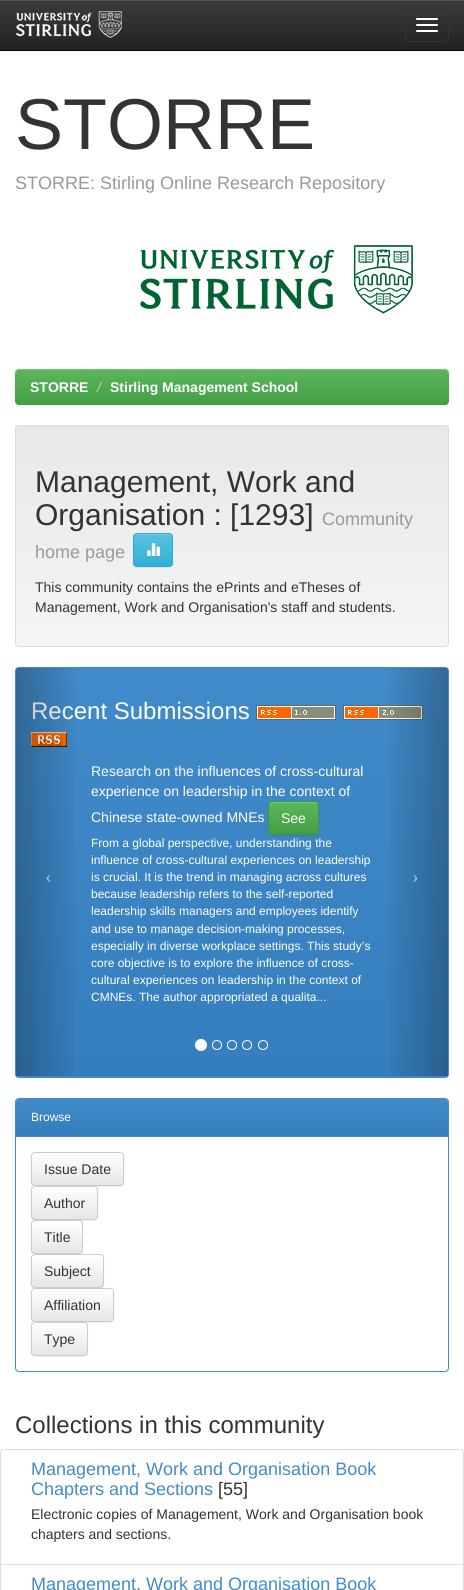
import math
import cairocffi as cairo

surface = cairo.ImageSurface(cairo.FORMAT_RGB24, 464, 1590)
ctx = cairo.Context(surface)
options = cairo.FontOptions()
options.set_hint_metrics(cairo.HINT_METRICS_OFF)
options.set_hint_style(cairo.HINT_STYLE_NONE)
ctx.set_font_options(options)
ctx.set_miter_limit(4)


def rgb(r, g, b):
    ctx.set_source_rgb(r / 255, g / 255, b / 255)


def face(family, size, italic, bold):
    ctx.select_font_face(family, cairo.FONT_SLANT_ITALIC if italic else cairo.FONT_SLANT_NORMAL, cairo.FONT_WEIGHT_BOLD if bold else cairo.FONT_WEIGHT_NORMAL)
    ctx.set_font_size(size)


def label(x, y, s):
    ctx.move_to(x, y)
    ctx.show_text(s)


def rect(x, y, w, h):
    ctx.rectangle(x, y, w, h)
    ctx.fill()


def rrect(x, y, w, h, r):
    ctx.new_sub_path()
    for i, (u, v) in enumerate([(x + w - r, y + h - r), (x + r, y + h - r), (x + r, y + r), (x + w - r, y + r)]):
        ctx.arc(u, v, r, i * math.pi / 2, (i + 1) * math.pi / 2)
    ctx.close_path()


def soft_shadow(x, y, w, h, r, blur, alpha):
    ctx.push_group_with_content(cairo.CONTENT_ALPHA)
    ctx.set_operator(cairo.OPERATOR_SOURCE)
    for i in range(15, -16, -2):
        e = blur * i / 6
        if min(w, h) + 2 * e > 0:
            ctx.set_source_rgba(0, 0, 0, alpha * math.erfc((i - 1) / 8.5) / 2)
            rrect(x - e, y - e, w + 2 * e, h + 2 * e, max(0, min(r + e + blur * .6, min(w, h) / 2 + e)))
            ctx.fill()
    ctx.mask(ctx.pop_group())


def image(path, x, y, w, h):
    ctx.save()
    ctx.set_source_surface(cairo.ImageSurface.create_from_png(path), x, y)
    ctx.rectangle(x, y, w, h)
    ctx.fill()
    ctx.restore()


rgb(255, 255, 255)
ctx.paint()
rgb(0, 0, 0)
soft_shadow(0, 1, 464, 51, 0, 2.5, 0.07)
gradient = cairo.LinearGradient(232, 0, 232, 50)
gradient.add_color_stop_rgba(0, 0.235, 0.235, 0.235, 1)
gradient.add_color_stop_rgba(1, 0.133, 0.133, 0.133, 1)
ctx.set_source(gradient)
rect(0, 1, 464, 49)
rgb(89, 89, 89)
rect(0, 0, 464, 1)
rgb(8, 8, 8)
rect(0, 50, 464, 1)
image('image0.png', 16, 11, 106, 27)
rrect(405.5, 8.5, 43, 33, 3.5)
rgb(51, 51, 51)
ctx.set_line_width(1)
ctx.stroke()
rgb(255, 255, 255)
rrect(416, 18, 22, 2, 1)
ctx.fill()
rrect(416, 24, 22, 2, 1)
ctx.fill()
rrect(416, 30, 22, 2, 1)
ctx.fill()
face('Liberation Sans', 72, 0, 0)
rgb(51, 51, 51)
label(15, 149, 'STORRE')
face('Liberation Sans', 18, 0, 0)
rgb(153, 153, 153)
label(15, 189, 'STORRE: Stirling Online Research Repository')
image('image1.png', 140, 245, 273, 69)
rgb(0, 0, 0)
soft_shadow(15, 370, 434, 36, 4, 0.5, 0.07)
gradient = cairo.LinearGradient(232, 369, 232, 405)
gradient.add_color_stop_rgba(0, 0.361, 0.722, 0.361, 1)
gradient.add_color_stop_rgba(1, 0.267, 0.616, 0.267, 1)
ctx.set_source(gradient)
rrect(15, 369, 434, 36, 4)
ctx.fill()
ctx.set_source_rgba(1, 1, 1, 0.15)
ctx.new_path()
ctx.move_to(19, 370)
ctx.line_to(445, 370)
ctx.curve_to(447, 370, 449, 372, 449, 374)
ctx.curve_to(449, 371, 448, 369, 445, 369)
ctx.line_to(19, 369)
ctx.line_to(17, 370)
ctx.line_to(16, 371)
ctx.line_to(15, 374)
ctx.curve_to(15, 372, 17, 370, 19, 370)
ctx.close_path()
ctx.fill()
face('Liberation Sans', 14, 0, 1)
rgb(255, 255, 255)
label(30, 392, 'STORRE')
face('Liberation Sans', 14, 1, 0)
rgb(204, 204, 204)
label(97, 392, '/')
face('Liberation Sans', 14, 0, 1)
rgb(255, 255, 255)
label(110, 392, 'Stirling Management School')
ctx.save()
rrect(15, 425, 434, 222, 4)
ctx.clip()
gradient = cairo.LinearGradient(232, 426, 232, 646)
gradient.add_color_stop_rgba(0, 0.91, 0.91, 0.91, 1)
gradient.add_color_stop_rgba(1, 0.961, 0.961, 0.961, 1)
ctx.set_source(gradient)
rect(15, 426, 434, 220)
ctx.restore()
rrect(15.5, 425.5, 433, 221, 3.5)
rgb(220, 220, 220)
ctx.stroke()
face('Liberation Sans', 30, 0, 0)
rgb(51, 51, 51)
label(35, 492, 'Management, Work and')
label(35, 525, 'Organisation : [1293]')
face('Liberation Sans', 18, 0, 0)
rgb(153, 153, 153)
label(322, 525, 'Community')
label(35, 558, 'home page')
rgb(0, 0, 0)
soft_shadow(133, 534, 40, 34, 4, 0.5, 0.07)
ctx.save()
rrect(133, 533, 40, 34, 4)
ctx.clip()
gradient = cairo.LinearGradient(153, 534, 153, 566)
gradient.add_color_stop_rgba(0, 0.357, 0.753, 0.871, 1)
gradient.add_color_stop_rgba(1, 0.192, 0.69, 0.835, 1)
ctx.set_source(gradient)
rect(133, 534, 40, 32)
ctx.restore()
rgb(115, 201, 227)
ctx.new_path()
ctx.move_to(137, 535)
ctx.line_to(164, 535)
ctx.curve_to(169.5, 535, 171.5, 535.5, 172, 537.5)
ctx.curve_to(172, 532.5, 167.5, 534, 163.5, 534)
ctx.line_to(142.5, 534)
ctx.curve_to(139, 534, 134, 533, 134, 537.5)
ctx.curve_to(134.5, 536, 135.5, 535, 137, 535)
ctx.close_path()
ctx.fill()
rrect(133.5, 533.5, 39, 33, 3.5)
rgb(42, 171, 210)
ctx.stroke()
image('image2.png', 147, 543, 13, 13)
face('Liberation Sans', 14, 0, 0)
rgb(51, 51, 51)
label(35, 592, 'This community contains the ePrints and eTheses of')
label(35, 612, 'Management, Work and Organisation\'s staff and students.')
rgb(0, 0, 0)
soft_shadow(15, 668, 434, 411, 4, 1, 0.05)
rrect(15.5, 667.5, 433, 410, 3.5)
rgb(66, 139, 202)
ctx.stroke()
ctx.new_path()
ctx.move_to(19, 668)
ctx.line_to(445, 668)
ctx.curve_to(446.5, 668, 448, 669.5, 448, 671)
ctx.line_to(448, 1077)
ctx.line_to(16, 1077)
ctx.line_to(16, 671)
ctx.curve_to(16, 669.5, 17.5, 668, 19, 668)
ctx.close_path()
ctx.fill()
gradient = cairo.LinearGradient(232, 668, 232, 1076)
gradient.add_color_stop_rgba(0, 0.259, 0.545, 0.792, 1)
gradient.add_color_stop_rgba(1, 0.208, 0.494, 0.741, 1)
ctx.set_source(gradient)
ctx.new_path()
ctx.move_to(19, 668)
ctx.line_to(445, 668)
ctx.curve_to(446.5, 668, 448, 669.5, 448, 671)
ctx.line_to(448, 1076)
ctx.line_to(16, 1076)
ctx.line_to(16, 671)
ctx.curve_to(16, 669.5, 17.5, 668, 19, 668)
ctx.close_path()
ctx.fill()
face('Liberation Sans', 24, 0, 0)
rgb(255, 255, 255)
label(31, 719, 'Recent Submissions')
image('image3.png', 256, 705, 80, 15)
image('image4.png', 343, 705, 80, 15)
image('image5.png', 31, 732, 36, 15)
gradient = cairo.LinearGradient(16, 872, 81, 872)
gradient.add_color_stop_rgba(0, 0, 0, 0, 0.25)
gradient.add_color_stop_rgba(1, 0, 0, 0, 0)
ctx.set_source(gradient)
rect(16, 668, 59, 408)
face('Liberation Serif', 20, 0, 0)
rgb(157, 194, 225)
label(45, 883, '‹')
face('Liberation Sans', 14, 0, 0)
rgb(255, 255, 255)
label(91, 776, 'Research on the influences of cross-cultural')
label(91, 796, 'experience on leadership in the context of')
label(91, 822, 'Chinese state-owned MNEs')
rgb(0, 0, 0)
soft_shadow(268, 802, 51, 34, 4, 0.5, 0.07)
ctx.save()
rrect(268, 801, 51, 34, 4)
ctx.clip()
gradient = cairo.LinearGradient(294, 802, 294, 834)
gradient.add_color_stop_rgba(0, 0.361, 0.722, 0.361, 1)
gradient.add_color_stop_rgba(1, 0.267, 0.616, 0.267, 1)
ctx.set_source(gradient)
rect(268, 802, 51, 32)
ctx.restore()
rgb(116, 195, 116)
ctx.new_path()
ctx.move_to(272, 803)
ctx.line_to(315, 803)
ctx.curve_to(317, 803, 318, 804, 318, 806)
ctx.curve_to(318, 800, 312, 802, 308, 802)
ctx.line_to(279, 802)
ctx.curve_to(275, 802, 269, 800, 269, 806)
ctx.curve_to(269, 804, 270, 803, 272, 803)
ctx.close_path()
ctx.fill()
rrect(268.5, 801.5, 50, 33, 3.5)
rgb(65, 150, 65)
ctx.stroke()
rgb(255, 255, 255)
label(281, 823, 'See')
face('Liberation Sans', 12, 0, 0)
label(91, 847, 'From a global perspective, understanding the')
label(91, 864, 'influence of cross-cultural experiences on leadership')
label(91, 881, 'is crucial. It is the trend in managing across cultures')
label(91, 898, 'because leadership refers to the self-reported')
label(91, 915, 'leadership skills managers and employees identify')
label(91, 933, 'and use to manage decision-making processes,')
label(91, 950, 'especially in diverse workplace settings. This study’s')
label(91, 967, 'core objective is to explore the influence of cross-')
label(91, 984, 'cultural experiences on leadership in the context of')
label(91, 1001, 'CMNEs. The author appropriated a qualita...')
gradient = cairo.LinearGradient(383, 872, 448, 872)
gradient.add_color_stop_rgba(0, 0, 0, 0, 0)
gradient.add_color_stop_rgba(1, 0, 0, 0, 0.25)
ctx.set_source(gradient)
rect(389, 668, 59, 408)
face('Liberation Serif', 20, 0, 0)
rgb(157, 194, 225)
label(412, 883, '›')
rgb(255, 255, 255)
ctx.new_path()
ctx.arc(201, 1045, 5.5, 0, 2 * math.pi)
ctx.fill_preserve()
ctx.stroke()
ctx.arc(217, 1045, 4.5, 0, 2 * math.pi)
ctx.stroke()
ctx.arc(232, 1045, 4.5, 0, 2 * math.pi)
ctx.stroke()
ctx.arc(247, 1045, 4.5, 0, 2 * math.pi)
ctx.stroke()
ctx.arc(263, 1045, 4.5, 0, 2 * math.pi)
ctx.stroke()
rgb(0, 0, 0)
soft_shadow(15, 1099, 434, 274, 4, 1, 0.05)
rgb(255, 255, 255)
rrect(15.5, 1098.5, 433, 273, 3.5)
ctx.fill_preserve()
rgb(66, 139, 202)
ctx.stroke()
ctx.new_path()
ctx.move_to(19, 1099)
ctx.line_to(445, 1099)
ctx.curve_to(446.5, 1099, 448, 1100.5, 448, 1102)
ctx.line_to(448, 1137)
ctx.line_to(16, 1137)
ctx.line_to(16, 1102)
ctx.curve_to(16, 1100.5, 17.5, 1099, 19, 1099)
ctx.close_path()
ctx.fill()
gradient = cairo.LinearGradient(232, 1099, 232, 1136)
gradient.add_color_stop_rgba(0, 0.259, 0.545, 0.792, 1)
gradient.add_color_stop_rgba(1, 0.208, 0.494, 0.741, 1)
ctx.set_source(gradient)
ctx.new_path()
ctx.move_to(19, 1099)
ctx.line_to(445, 1099)
ctx.curve_to(446.5, 1099, 448, 1100.5, 448, 1102)
ctx.line_to(448, 1136)
ctx.line_to(16, 1136)
ctx.line_to(16, 1102)
ctx.curve_to(16, 1100.5, 17.5, 1099, 19, 1099)
ctx.close_path()
ctx.fill()
face('Liberation Sans', 12, 0, 0)
rgb(255, 255, 255)
label(31, 1121, 'Browse')
rgb(0, 0, 0)
soft_shadow(31, 1153, 93, 34, 4, 0.5, 0.07)
ctx.save()
rrect(31, 1152, 93, 34, 4)
ctx.clip()
gradient = cairo.LinearGradient(78, 1153, 78, 1185)
gradient.add_color_stop_rgba(0, 1, 1, 1, 1)
gradient.add_color_stop_rgba(1, 0.902, 0.902, 0.902, 1)
ctx.set_source(gradient)
rect(31, 1153, 93, 32)
ctx.restore()
rrect(31.5, 1152.5, 92, 33, 3.5)
rgb(204, 204, 204)
ctx.stroke()
face('Liberation Sans', 14, 0, 0)
rgb(51, 51, 51)
label(44, 1174, 'Issue Date')
rgb(0, 0, 0)
soft_shadow(31, 1187, 67, 34, 4, 0.5, 0.07)
ctx.save()
rrect(31, 1186, 67, 34, 4)
ctx.clip()
gradient = cairo.LinearGradient(65, 1187, 65, 1219)
gradient.add_color_stop_rgba(0, 1, 1, 1, 1)
gradient.add_color_stop_rgba(1, 0.902, 0.902, 0.902, 1)
ctx.set_source(gradient)
rect(31, 1187, 67, 32)
ctx.restore()
rrect(31.5, 1186.5, 66, 33, 3.5)
rgb(204, 204, 204)
ctx.stroke()
rgb(51, 51, 51)
label(44, 1208, 'Author')
rgb(0, 0, 0)
soft_shadow(31, 1221, 52, 34, 4, 0.5, 0.07)
ctx.save()
rrect(31, 1220, 52, 34, 4)
ctx.clip()
gradient = cairo.LinearGradient(57, 1221, 57, 1253)
gradient.add_color_stop_rgba(0, 1, 1, 1, 1)
gradient.add_color_stop_rgba(1, 0.902, 0.902, 0.902, 1)
ctx.set_source(gradient)
rect(31, 1221, 52, 32)
ctx.restore()
rrect(31.5, 1220.5, 51, 33, 3.5)
rgb(204, 204, 204)
ctx.stroke()
rgb(51, 51, 51)
label(44, 1242, 'Title')
rgb(0, 0, 0)
soft_shadow(31, 1255, 73, 34, 4, 0.5, 0.07)
ctx.save()
rrect(31, 1254, 73, 34, 4)
ctx.clip()
gradient = cairo.LinearGradient(68, 1255, 68, 1287)
gradient.add_color_stop_rgba(0, 1, 1, 1, 1)
gradient.add_color_stop_rgba(1, 0.902, 0.902, 0.902, 1)
ctx.set_source(gradient)
rect(31, 1255, 73, 32)
ctx.restore()
rrect(31.5, 1254.5, 72, 33, 3.5)
rgb(204, 204, 204)
ctx.stroke()
rgb(51, 51, 51)
label(44, 1276, 'Subject')
rgb(0, 0, 0)
soft_shadow(31, 1289, 83, 34, 4, 0.5, 0.07)
ctx.save()
rrect(31, 1288, 83, 34, 4)
ctx.clip()
gradient = cairo.LinearGradient(73, 1289, 73, 1321)
gradient.add_color_stop_rgba(0, 1, 1, 1, 1)
gradient.add_color_stop_rgba(1, 0.902, 0.902, 0.902, 1)
ctx.set_source(gradient)
rect(31, 1289, 83, 32)
ctx.restore()
rrect(31.5, 1288.5, 82, 33, 3.5)
rgb(204, 204, 204)
ctx.stroke()
rgb(51, 51, 51)
label(44, 1310, 'Affiliation')
rgb(0, 0, 0)
soft_shadow(31, 1323, 57, 34, 4, 0.5, 0.07)
ctx.save()
rrect(31, 1322, 57, 34, 4)
ctx.clip()
gradient = cairo.LinearGradient(60, 1323, 60, 1355)
gradient.add_color_stop_rgba(0, 1, 1, 1, 1)
gradient.add_color_stop_rgba(1, 0.902, 0.902, 0.902, 1)
ctx.set_source(gradient)
rect(31, 1323, 57, 32)
ctx.restore()
rrect(31.5, 1322.5, 56, 33, 3.5)
rgb(204, 204, 204)
ctx.stroke()
rgb(51, 51, 51)
label(44, 1344, 'Type')
face('Liberation Sans', 24, 0, 0)
label(15, 1433, 'Collections in this community')
ctx.new_path()
ctx.move_to(4, 1449.5)
ctx.line_to(460, 1449.5)
ctx.curve_to(462, 1449.5, 463.5, 1451, 463.5, 1453)
ctx.line_to(463.5, 1564.5)
ctx.line_to(0.5, 1564.5)
ctx.line_to(0.5, 1453)
ctx.curve_to(0.5, 1451, 2, 1449.5, 4, 1449.5)
ctx.close_path()
rgb(221, 221, 221)
ctx.stroke()
face('Liberation Sans', 18, 0, 0)
rgb(66, 139, 202)
label(31, 1475, 'Management, Work and Organisation Book')
label(31, 1495, 'Chapters and Sections')
rgb(51, 51, 51)
label(218, 1495, '[55]')
face('Liberation Sans', 14, 0, 0)
label(31, 1519, 'Electronic copies of Management, Work and Organisation book')
label(31, 1539, 'chapters and sections.')
ctx.rectangle(0.5, 1564.5, 463, 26)
rgb(221, 221, 221)
ctx.stroke()
face('Liberation Sans', 18, 0, 0)
rgb(66, 139, 202)
label(31, 1590, 'Management, Work and Organisation Book')
surface.write_to_png('render.png')
